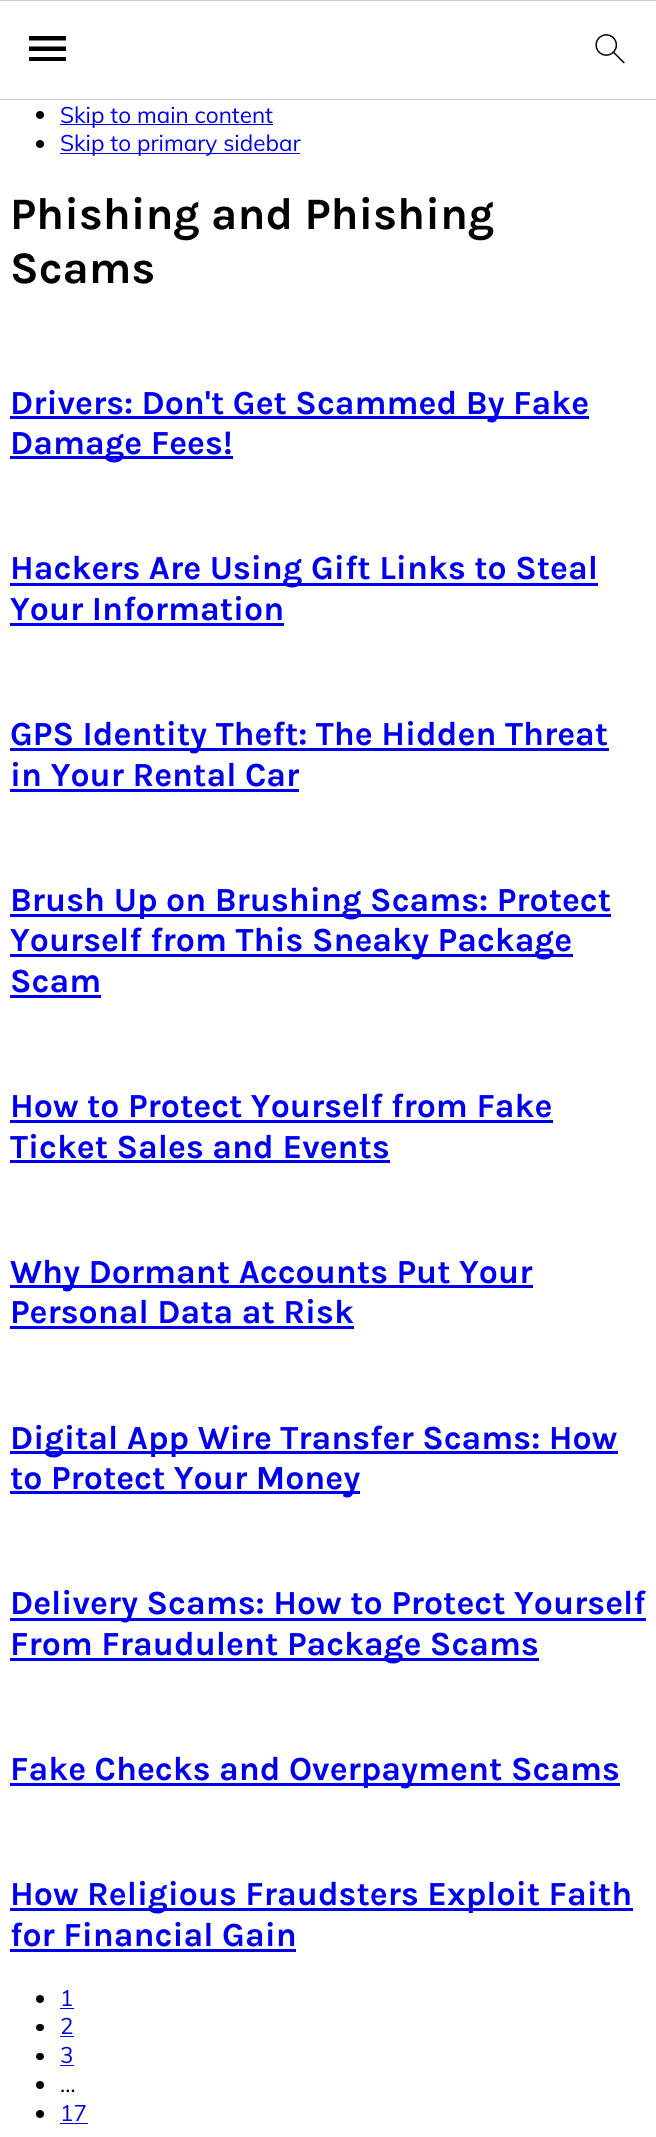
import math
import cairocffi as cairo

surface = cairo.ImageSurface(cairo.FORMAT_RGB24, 656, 2137)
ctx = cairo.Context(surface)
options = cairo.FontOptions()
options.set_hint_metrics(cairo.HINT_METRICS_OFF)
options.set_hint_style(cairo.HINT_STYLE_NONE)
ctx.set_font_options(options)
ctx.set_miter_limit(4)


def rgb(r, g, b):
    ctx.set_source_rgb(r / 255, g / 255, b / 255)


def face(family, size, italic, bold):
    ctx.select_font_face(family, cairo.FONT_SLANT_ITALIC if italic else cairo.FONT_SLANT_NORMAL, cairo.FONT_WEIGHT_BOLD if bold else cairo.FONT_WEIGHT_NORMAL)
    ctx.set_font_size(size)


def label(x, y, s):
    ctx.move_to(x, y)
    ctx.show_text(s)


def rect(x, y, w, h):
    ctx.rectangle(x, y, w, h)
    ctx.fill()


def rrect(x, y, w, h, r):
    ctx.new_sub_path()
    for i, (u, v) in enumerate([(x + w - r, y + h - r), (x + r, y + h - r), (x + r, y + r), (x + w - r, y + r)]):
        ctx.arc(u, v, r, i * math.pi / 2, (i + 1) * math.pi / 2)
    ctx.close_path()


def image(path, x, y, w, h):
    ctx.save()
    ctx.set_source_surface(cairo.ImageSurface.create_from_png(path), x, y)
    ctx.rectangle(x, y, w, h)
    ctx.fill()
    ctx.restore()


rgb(255, 255, 255)
ctx.paint()
rgb(204, 204, 204)
rect(0, 0, 656, 1)
rect(0, 99, 656, 1)
rgb(0, 0, 0)
ctx.new_path()
ctx.move_to(29, 61)
ctx.line_to(66, 61)
ctx.line_to(66, 57)
ctx.line_to(29, 57)
ctx.close_path()
ctx.move_to(29, 51)
ctx.line_to(66, 51)
ctx.line_to(66, 46.5)
ctx.line_to(29, 46.5)
ctx.close_path()
ctx.move_to(29, 36)
ctx.line_to(29, 40.5)
ctx.line_to(66, 40.5)
ctx.line_to(66, 36)
ctx.close_path()
ctx.fill()
image('image0.png', 595, 34, 30, 30)
ctx.arc(40, 115, 4, 0, 2 * math.pi)
ctx.fill()
rgb(0, 0, 238)
rect(60, 124, 213, 1)
face('Muli', 22.5, 0, 0)
label(60, 123, 'Skip to main content')
rgb(0, 0, 0)
ctx.new_path()
ctx.arc(40, 144, 4, 0, 2 * math.pi)
ctx.fill()
rgb(0, 0, 238)
rect(60, 153, 240, 1)
label(60, 151, 'Skip to primary sidebar')
face('Karla', 45, 0, 1)
rgb(0, 0, 0)
label(10, 229, 'Phishing and Phishing')
label(10, 283, 'Scams')
rgb(0, 0, 238)
rect(10, 416, 579, 3)
face('Karla', 33.75, 0, 1)
label(10, 414, 'Drivers: Don\'t Get Scammed By Fake')
rect(10, 456, 223, 3)
label(10, 454, 'Damage Fees!')
rect(10, 583, 588, 3)
label(10, 579, 'Hackers Are Using Gift Links to Steal')
label(10, 620, 'Your Information')
rect(10, 623, 274, 3)
rect(10, 748, 599, 3)
label(10, 745, 'GPS Identity Theft: The Hidden Threat')
label(10, 786, 'in Your Rental Car')
rect(10, 789, 289, 3)
rect(10, 914, 601, 3)
label(10, 911, 'Brush Up on Brushing Scams: Protect')
rect(10, 954, 563, 3)
label(10, 951, 'Yourself from This Sneaky Package')
label(10, 992, 'Scam')
rect(10, 995, 91, 3)
label(10, 1117, 'How to Protect Yourself from Fake')
rect(10, 1120, 543, 3)
label(10, 1158, 'Ticket Sales and Events')
rect(10, 1160, 380, 3)
rect(10, 1285, 523, 3)
label(10, 1283, 'Why Dormant Accounts Put Your')
label(10, 1323, 'Personal Data at Risk')
rect(10, 1326, 344, 3)
rect(10, 1451, 608, 3)
label(10, 1449, 'Digital App Wire Transfer Scams: How')
rect(10, 1491, 350, 3)
label(10, 1489, 'to Protect Your Money')
rect(10, 1618, 636, 3)
label(10, 1614, 'Delivery Scams: How to Protect Yourself')
rect(10, 1658, 529, 3)
label(10, 1655, 'From Fraudulent Package Scams')
rect(10, 1783, 610, 3)
label(10, 1780, 'Fake Checks and Overpayment Scams')
rect(10, 1908, 623, 3)
label(10, 1905, 'How Religious Fraudsters Exploit Faith')
label(10, 1946, 'for Financial Gain')
rect(10, 1949, 286, 3)
rgb(0, 0, 0)
ctx.new_path()
ctx.arc(40, 1999, 4, 0, 2 * math.pi)
ctx.fill()
face('Muli', 22.5, 0, 0)
rgb(0, 0, 238)
label(60, 2006, '1')
rect(60, 2008, 14, 1)
rgb(0, 0, 0)
rrect(36, 2024, 8, 7, 3.5)
ctx.fill()
rgb(0, 0, 238)
label(60, 2034, '2')
rect(60, 2036, 14, 1)
rgb(0, 0, 0)
rrect(36, 2053, 8, 7, 3.5)
ctx.fill()
rgb(0, 0, 238)
label(60, 2063, '3')
rect(60, 2065, 14, 1)
rgb(0, 0, 0)
ctx.new_path()
ctx.arc(40, 2085, 4, 0, 2 * math.pi)
ctx.fill()
label(60, 2092, '…')
ctx.new_path()
ctx.arc(40, 2114, 4, 0, 2 * math.pi)
ctx.fill()
rgb(0, 0, 238)
label(60, 2121, '17')
rect(60, 2123, 28, 1)
surface.write_to_png('render.png')
